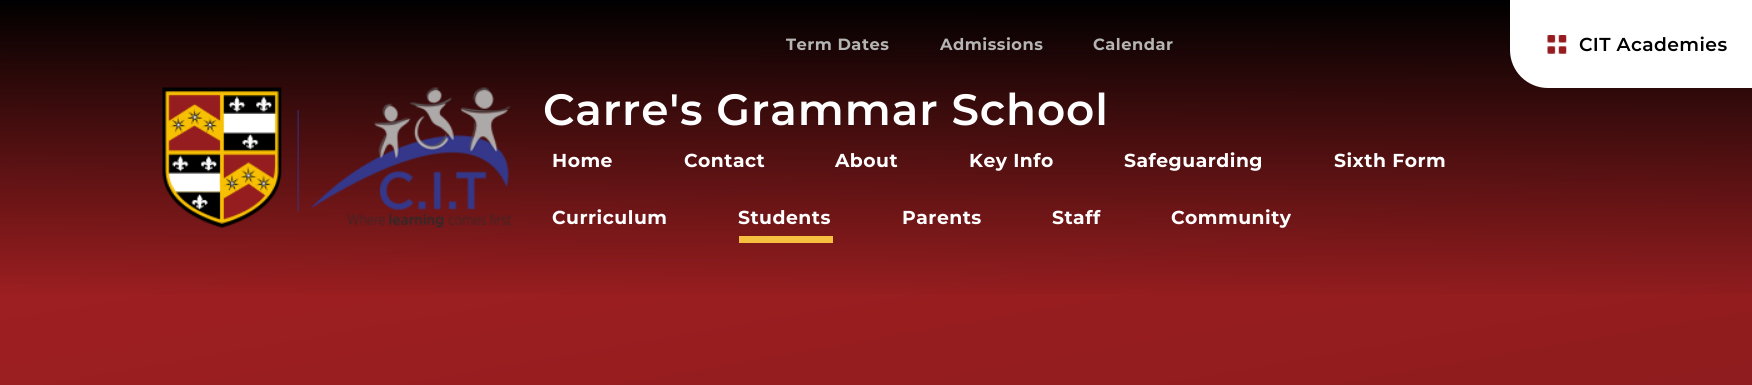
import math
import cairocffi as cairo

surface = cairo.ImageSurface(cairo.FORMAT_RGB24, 1752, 385)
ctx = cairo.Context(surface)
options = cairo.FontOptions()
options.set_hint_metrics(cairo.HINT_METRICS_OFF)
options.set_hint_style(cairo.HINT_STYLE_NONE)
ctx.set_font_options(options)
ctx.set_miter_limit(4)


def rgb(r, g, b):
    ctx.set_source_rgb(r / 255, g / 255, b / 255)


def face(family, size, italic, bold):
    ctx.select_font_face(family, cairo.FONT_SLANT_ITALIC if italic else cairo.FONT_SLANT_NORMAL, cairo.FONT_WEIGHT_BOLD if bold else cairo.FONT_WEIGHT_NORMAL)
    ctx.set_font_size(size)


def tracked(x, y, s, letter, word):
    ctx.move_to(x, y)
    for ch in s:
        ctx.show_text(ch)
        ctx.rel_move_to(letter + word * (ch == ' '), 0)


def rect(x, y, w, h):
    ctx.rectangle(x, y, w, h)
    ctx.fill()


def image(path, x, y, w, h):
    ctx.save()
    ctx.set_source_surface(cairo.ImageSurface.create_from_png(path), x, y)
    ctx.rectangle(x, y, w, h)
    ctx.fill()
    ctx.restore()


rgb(255, 255, 255)
ctx.paint()
gradient = cairo.LinearGradient(786, -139, 967, 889)
gradient.add_color_stop_rgba(0, 0.667, 0.129, 0.137, 1)
gradient.add_color_stop_rgba(1, 0.502, 0.098, 0.106, 1)
ctx.set_source(gradient)
rect(0, 2, 1752, 383)
gradient = cairo.LinearGradient(876, 300, 876, 0)
gradient.add_color_stop_rgba(0, 0, 0, 0, 0)
gradient.add_color_stop_rgba(1, 0, 0, 0, 1)
ctx.set_source(gradient)
rect(0, 0, 1752, 294)
image('image0.png', 162, 87, 350, 141)
face('Montserrat', 16.25, 0, 1)
rgb(181, 181, 181)
tracked(786, 50, 'Term Dates', 0.5, 0)
tracked(940, 50, 'Admissions', 0.5, 0)
tracked(1093, 50, 'Calendar', 0.5, 0)
rgb(255, 255, 255)
ctx.new_path()
ctx.move_to(1510, 0)
ctx.line_to(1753, 0)
ctx.line_to(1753, 88)
ctx.line_to(1548, 88)
ctx.curve_to(1527, 88, 1510, 71, 1510, 50)
ctx.close_path()
ctx.fill()
image('image1.png', 1547, 35, 20, 19)
face('Montserrat SemiBold', 18.75, 0, 0)
rgb(0, 0, 0)
tracked(1579, 51, 'CIT Academies', 0.4, 0)
face('Montserrat SemiBold', 43.75, 0, 0)
rgb(255, 255, 255)
tracked(543, 125, 'Carre\'s Grammar School', 0.9, 0)
face('Montserrat', 18.75, 0, 1)
tracked(552, 167, 'Home', 0.5, 0)
tracked(684, 167, 'Contact', 0.5, 0)
tracked(835, 167, 'About', 0.5, 0)
tracked(969, 167, 'Key Info', 0.5, 0)
tracked(1124, 167, 'Safeguarding', 0.5, 0)
tracked(1334, 167, 'Sixth Form', 0.5, 0)
tracked(552, 224, 'Curriculum', 0.5, 0)
tracked(738, 224, 'Students', 0.5, 0)
rgb(247, 191, 63)
rect(739, 236, 94, 7)
rgb(255, 255, 255)
tracked(902, 224, 'Parents', 0.5, 0)
tracked(1052, 224, 'Staff', 0.5, 0)
tracked(1171, 224, 'Community', 0.5, 0)
surface.write_to_png('render.png')
